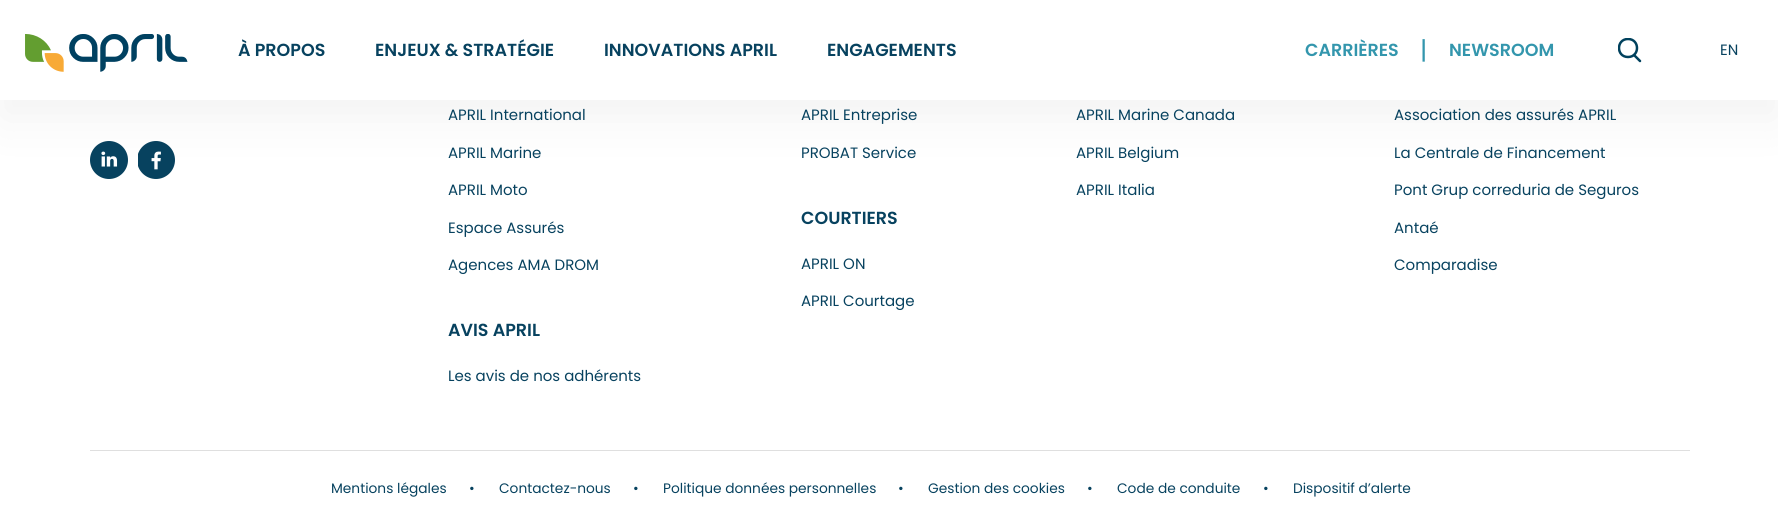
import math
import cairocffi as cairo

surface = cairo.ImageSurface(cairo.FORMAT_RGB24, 1778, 519)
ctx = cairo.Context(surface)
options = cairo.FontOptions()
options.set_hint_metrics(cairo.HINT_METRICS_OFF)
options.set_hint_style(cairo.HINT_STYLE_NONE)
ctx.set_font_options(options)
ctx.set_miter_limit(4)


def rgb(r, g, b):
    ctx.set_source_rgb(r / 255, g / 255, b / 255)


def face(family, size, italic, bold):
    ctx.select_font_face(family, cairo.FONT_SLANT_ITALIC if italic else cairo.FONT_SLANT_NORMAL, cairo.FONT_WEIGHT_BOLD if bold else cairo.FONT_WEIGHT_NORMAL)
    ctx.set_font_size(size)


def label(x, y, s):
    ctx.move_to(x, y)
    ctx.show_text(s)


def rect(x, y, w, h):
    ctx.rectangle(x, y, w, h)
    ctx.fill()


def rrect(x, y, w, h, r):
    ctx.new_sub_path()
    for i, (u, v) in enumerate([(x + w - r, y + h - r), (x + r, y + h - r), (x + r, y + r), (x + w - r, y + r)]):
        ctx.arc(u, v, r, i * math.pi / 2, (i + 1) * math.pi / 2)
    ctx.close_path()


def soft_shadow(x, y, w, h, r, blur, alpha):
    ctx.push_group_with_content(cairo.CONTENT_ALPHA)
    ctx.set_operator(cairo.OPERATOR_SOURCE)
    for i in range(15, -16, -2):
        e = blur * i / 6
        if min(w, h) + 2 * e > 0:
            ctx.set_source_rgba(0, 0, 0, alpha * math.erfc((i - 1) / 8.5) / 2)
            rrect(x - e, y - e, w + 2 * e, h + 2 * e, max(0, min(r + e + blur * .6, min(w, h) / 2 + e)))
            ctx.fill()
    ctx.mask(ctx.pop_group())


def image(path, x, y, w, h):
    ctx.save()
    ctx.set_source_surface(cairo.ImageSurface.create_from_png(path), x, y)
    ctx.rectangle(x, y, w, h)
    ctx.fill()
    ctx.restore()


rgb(255, 255, 255)
ctx.paint()
image('image1.png', 90, 141, 38, 38)
image('image2.png', 138, 141, 37, 38)
rgb(0, 0, 0)
soft_shadow(0, 19, 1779, 100, 0, 25, 0.05)
rgb(255, 255, 255)
rect(0, 0, 1778, 100)
image('image0.png', 25, 34, 163, 38)
face('Poppins SemiBold', 17.5, 0, 0)
rgb(7, 66, 95)
label(238, 56, 'À PROPOS')
label(375, 56, 'ENJEUX & STRATÉGIE')
label(604, 56, 'INNOVATIONS APRIL')
label(827, 56, 'ENGAGEMENTS')
rgb(51, 150, 173)
label(1305, 56, 'CARRIÈRES')
face('Poppins', 25, 0, 0)
label(1420, 59, '|')
face('Poppins SemiBold', 17.5, 0, 0)
label(1449, 56, 'NEWSROOM')
ctx.save()
ctx.rectangle(1618, 38, 23, 25)
ctx.clip()
ctx.new_path()
ctx.move_to(1628, 57)
ctx.curve_to(1640, 57, 1640, 39, 1628, 39)
ctx.curve_to(1616, 39, 1616, 57, 1628, 57)
ctx.close_path()
rgb(0, 65, 93)
ctx.set_line_width(2.5)
ctx.stroke()
ctx.restore()
ctx.new_path()
ctx.move_to(1634, 55)
ctx.line_to(1640, 61)
rgb(0, 65, 93)
ctx.set_line_width(2.5)
ctx.set_line_cap(cairo.LINE_CAP_ROUND)
ctx.stroke()
face('Poppins', 15, 0, 0)
rgb(7, 66, 95)
label(1720, 55, 'EN')
label(448, 120, 'APRIL International')
label(448, 158, 'APRIL Marine')
label(448, 195, 'APRIL Moto')
label(448, 233, 'Espace Assurés')
label(448, 270, 'Agences AMA DROM')
face('Poppins SemiBold', 17.5, 0, 0)
label(448, 336, 'AVIS APRIL')
face('Poppins', 15, 0, 0)
label(448, 381, 'Les avis de nos adhérents')
label(801, 120, 'APRIL Entreprise')
label(801, 158, 'PROBAT Service')
face('Poppins SemiBold', 17.5, 0, 0)
label(801, 224, 'COURTIERS')
face('Poppins', 15, 0, 0)
label(801, 269, 'APRIL ON')
label(801, 306, 'APRIL Courtage')
label(1076, 120, 'APRIL Marine Canada')
label(1076, 158, 'APRIL Belgium')
label(1076, 195, 'APRIL Italia')
label(1394, 120, 'Association des assurés APRIL')
label(1394, 158, 'La Centrale de Financement')
label(1394, 195, 'Pont Grup correduria de Seguros')
label(1394, 233, 'Antaé')
label(1394, 270, 'Comparadise')
rgb(223, 223, 223)
rect(90, 450, 1600, 1)
face('Poppins', 13.75, 0, 0)
rgb(7, 66, 95)
label(331, 493, 'Mentions légales')
label(469, 493, '•')
label(499, 493, 'Contactez-nous')
label(633, 493, '•')
label(663, 493, 'Politique données personnelles')
label(898, 493, '•')
label(928, 493, 'Gestion des cookies')
label(1087, 493, '•')
label(1117, 493, 'Code de conduite')
label(1263, 493, '•')
label(1293, 493, 'Dispositif d’alerte')
surface.write_to_png('render.png')
